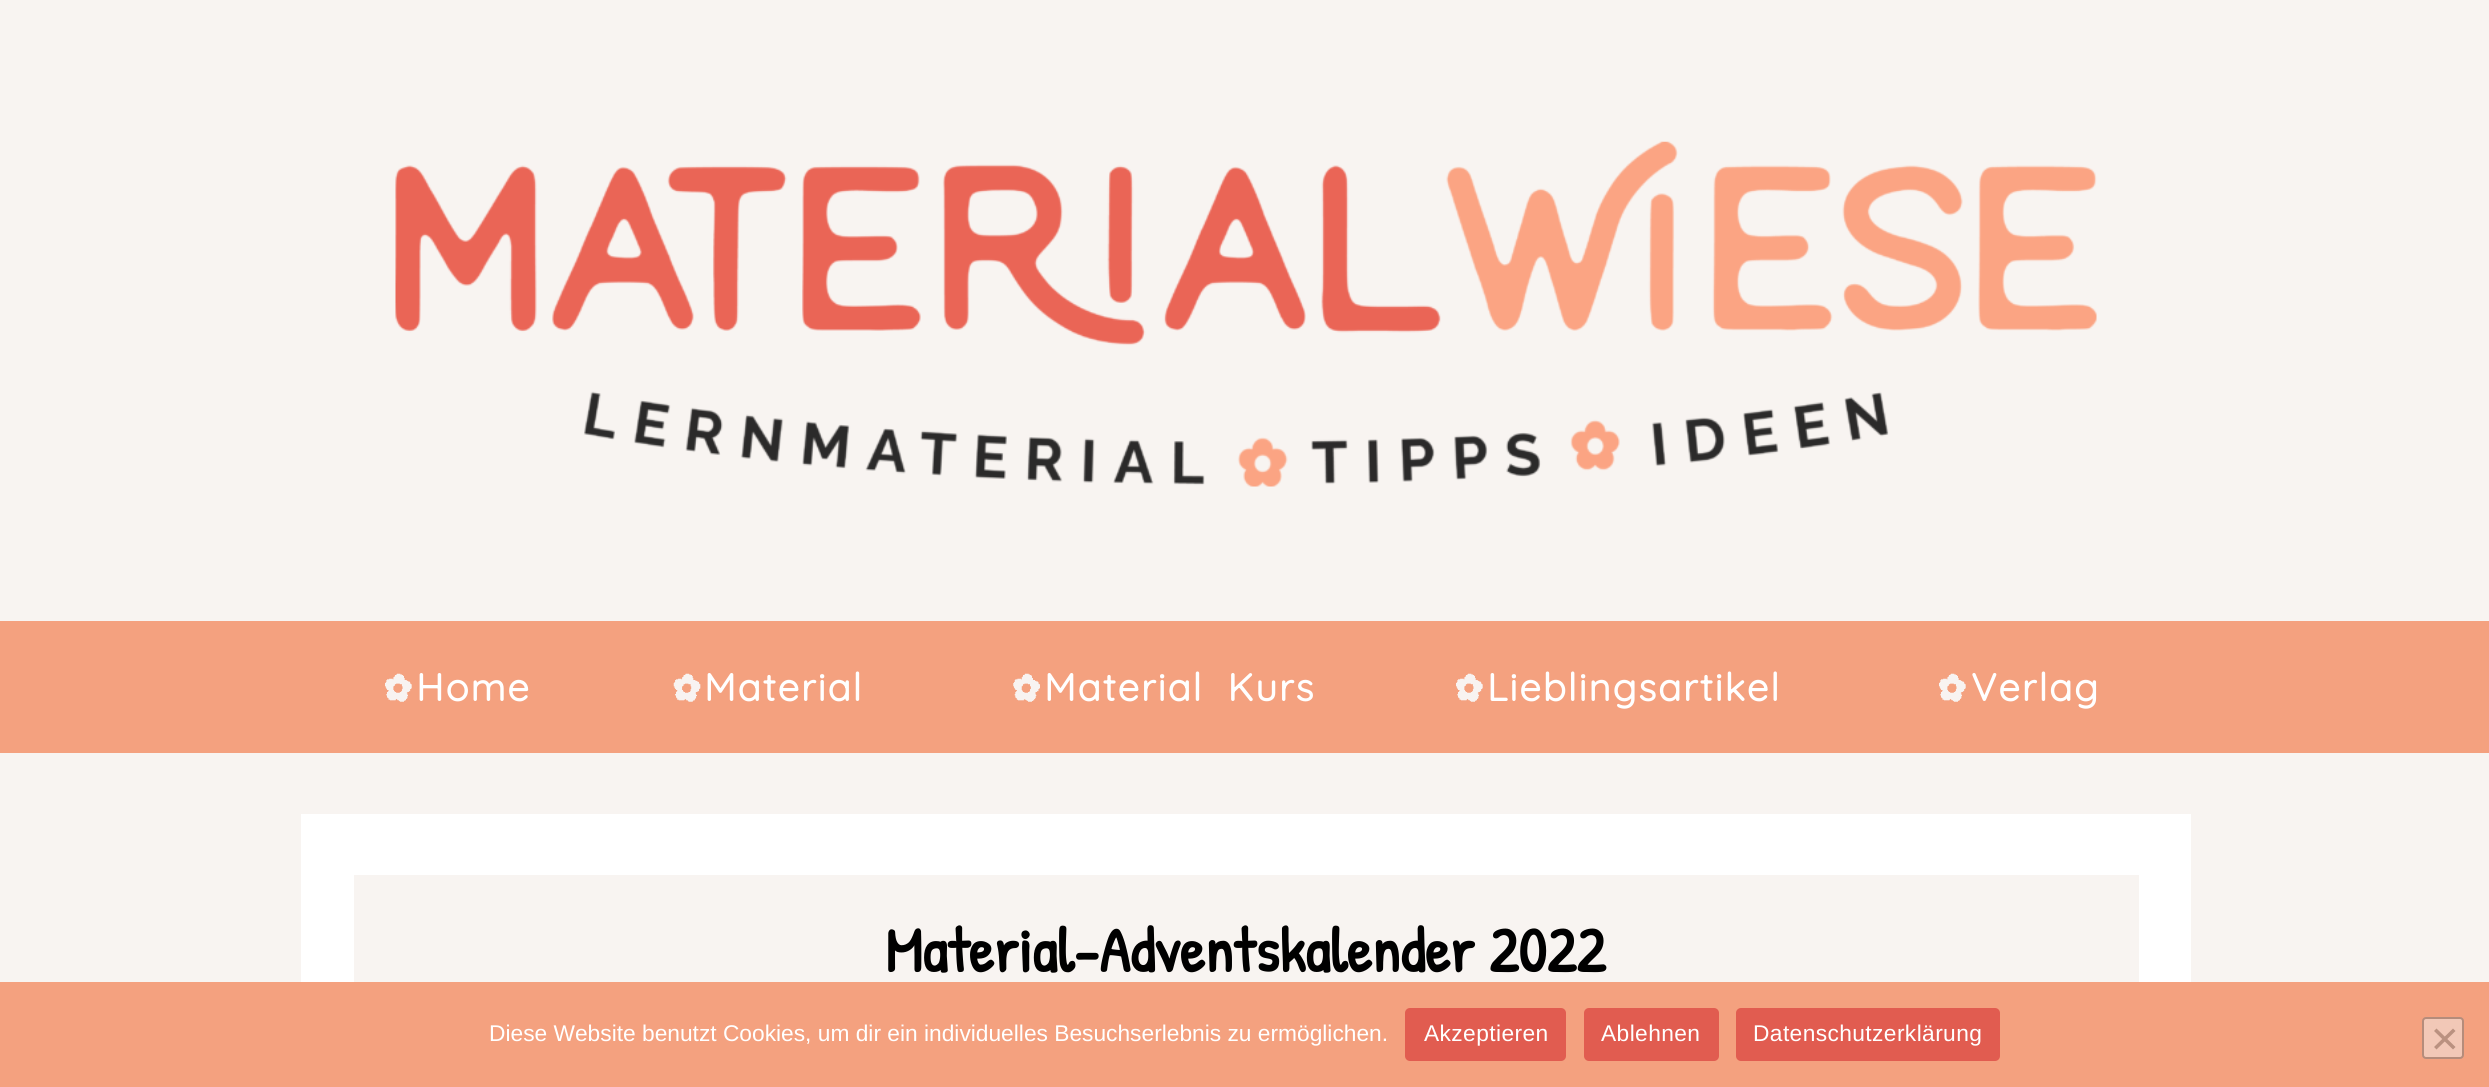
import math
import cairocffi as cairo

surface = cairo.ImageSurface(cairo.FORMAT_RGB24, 2489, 1087)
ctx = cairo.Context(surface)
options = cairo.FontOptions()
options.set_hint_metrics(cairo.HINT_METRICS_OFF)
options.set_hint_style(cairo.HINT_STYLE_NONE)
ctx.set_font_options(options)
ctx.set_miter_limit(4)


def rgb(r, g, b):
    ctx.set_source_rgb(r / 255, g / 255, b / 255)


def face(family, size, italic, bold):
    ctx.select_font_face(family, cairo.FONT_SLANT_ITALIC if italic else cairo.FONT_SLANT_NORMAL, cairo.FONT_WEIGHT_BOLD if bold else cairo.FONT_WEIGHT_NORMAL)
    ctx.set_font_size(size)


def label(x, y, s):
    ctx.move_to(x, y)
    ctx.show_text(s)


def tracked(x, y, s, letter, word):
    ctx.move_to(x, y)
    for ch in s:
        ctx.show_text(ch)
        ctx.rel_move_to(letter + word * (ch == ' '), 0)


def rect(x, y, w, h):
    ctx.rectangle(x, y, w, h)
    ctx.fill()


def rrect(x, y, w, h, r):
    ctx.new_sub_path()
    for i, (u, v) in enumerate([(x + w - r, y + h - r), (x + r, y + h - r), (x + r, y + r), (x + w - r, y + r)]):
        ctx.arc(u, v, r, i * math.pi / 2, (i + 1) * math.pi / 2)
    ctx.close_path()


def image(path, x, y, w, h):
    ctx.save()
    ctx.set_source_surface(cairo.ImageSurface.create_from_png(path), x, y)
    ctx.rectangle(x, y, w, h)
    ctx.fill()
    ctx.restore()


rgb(248, 244, 241)
ctx.paint()
image('image0.png', 395, 141, 1702, 346)
rgb(244, 161, 127)
rect(0, 621, 2489, 132)
image('image1.png', 385, 673, 27, 29)
face('Quicksand', 38.5, 0, 1)
rgb(255, 255, 255)
tracked(416, 701, 'Home', 1.75, 0)
image('image2.png', 673, 673, 28, 29)
tracked(704, 701, 'Material', 1.75, 0)
image('image3.png', 1013, 673, 27, 29)
tracked(1044, 701, 'Material Kurs', 1.75, 12)
image('image4.png', 1456, 673, 27, 29)
tracked(1487, 701, 'Lieblingsartikel', 1.75, 0)
image('image4.png', 1939, 673, 27, 29)
tracked(1971, 701, 'Verlag', 1.75, 0)
rect(301, 814, 1890, 168)
rgb(248, 244, 241)
rect(354, 875, 1785, 107)
face('Patrick Hand', 63, 0, 1)
rgb(0, 0, 0)
label(885, 972, 'Material-Adventskalender 2022')
rgb(244, 161, 127)
rect(0, 982, 2489, 105)
face('Liberation Sans', 22.75, 0, 0)
rgb(255, 255, 255)
label(489, 1041, 'Diese Website benutzt Cookies, um dir ein individuelles Besuchserlebnis zu ermöglichen.')
rgb(225, 92, 80)
rrect(1405, 1008, 161, 53, 5)
ctx.fill()
rgb(255, 255, 255)
tracked(1424, 1041, 'Akzeptieren', 0.4, 0)
rgb(225, 92, 80)
rrect(1584, 1008, 135, 53, 5)
ctx.fill()
rgb(255, 255, 255)
tracked(1601, 1041, 'Ablehnen', 0.4, 0)
rgb(225, 92, 80)
rrect(1736, 1008, 264, 53, 5)
ctx.fill()
rgb(255, 255, 255)
tracked(1753, 1041, 'Datenschutzerklärung', 0.4, 0)
rgb(242, 200, 183)
rrect(2423, 1018, 40, 40, 3)
ctx.fill_preserve()
rgb(181, 140, 123)
ctx.stroke()
rgb(186, 145, 128)
ctx.new_path()
ctx.move_to(2453, 1028.5)
ctx.line_to(2455.5, 1031)
ctx.line_to(2436.5, 1049.5)
ctx.line_to(2434, 1047)
ctx.close_path()
ctx.fill()
ctx.new_path()
ctx.move_to(2434, 1031)
ctx.line_to(2436.5, 1028.5)
ctx.line_to(2455.5, 1047)
ctx.line_to(2453, 1049.5)
ctx.close_path()
ctx.fill()
surface.write_to_png('render.png')
